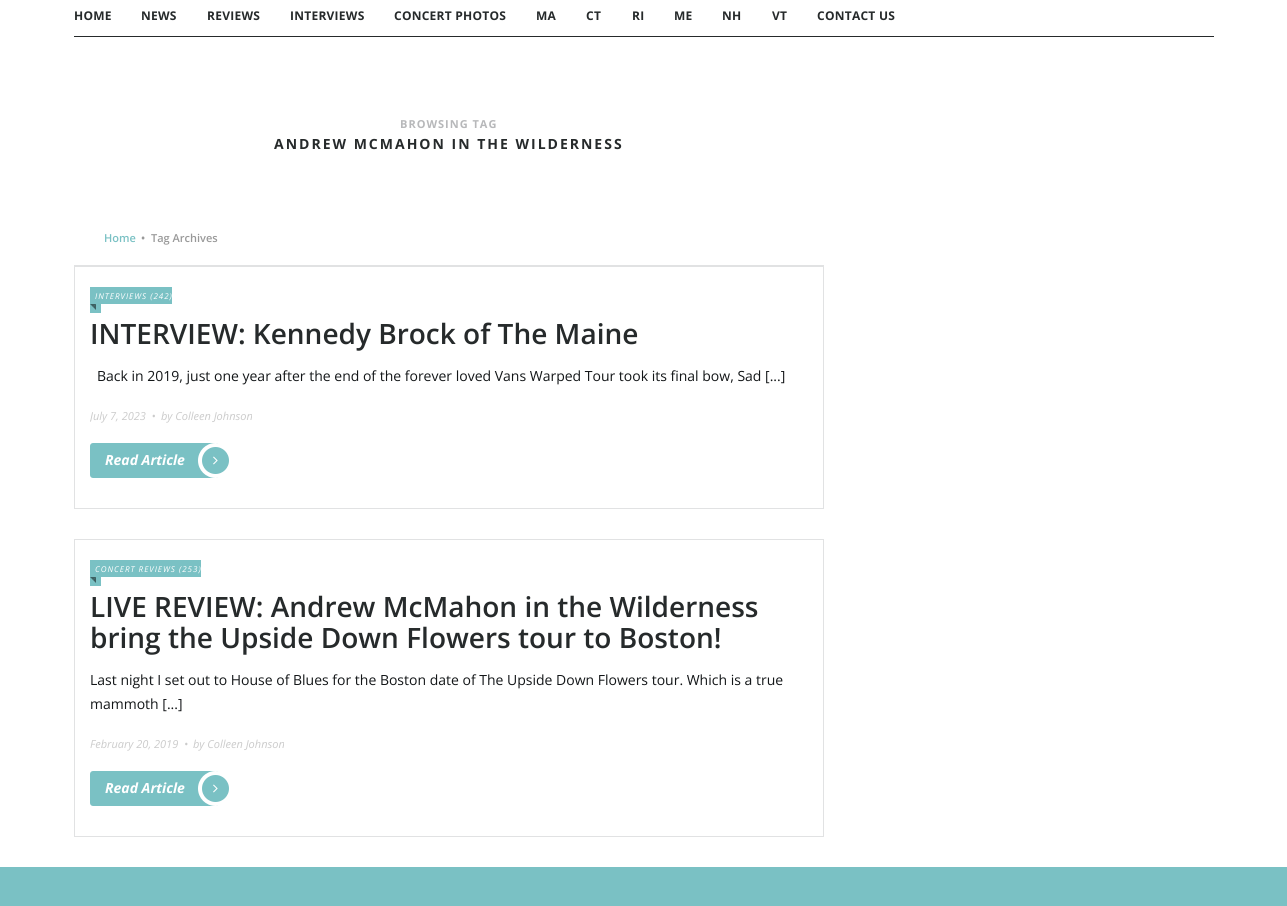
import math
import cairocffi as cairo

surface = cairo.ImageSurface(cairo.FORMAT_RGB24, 1287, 906)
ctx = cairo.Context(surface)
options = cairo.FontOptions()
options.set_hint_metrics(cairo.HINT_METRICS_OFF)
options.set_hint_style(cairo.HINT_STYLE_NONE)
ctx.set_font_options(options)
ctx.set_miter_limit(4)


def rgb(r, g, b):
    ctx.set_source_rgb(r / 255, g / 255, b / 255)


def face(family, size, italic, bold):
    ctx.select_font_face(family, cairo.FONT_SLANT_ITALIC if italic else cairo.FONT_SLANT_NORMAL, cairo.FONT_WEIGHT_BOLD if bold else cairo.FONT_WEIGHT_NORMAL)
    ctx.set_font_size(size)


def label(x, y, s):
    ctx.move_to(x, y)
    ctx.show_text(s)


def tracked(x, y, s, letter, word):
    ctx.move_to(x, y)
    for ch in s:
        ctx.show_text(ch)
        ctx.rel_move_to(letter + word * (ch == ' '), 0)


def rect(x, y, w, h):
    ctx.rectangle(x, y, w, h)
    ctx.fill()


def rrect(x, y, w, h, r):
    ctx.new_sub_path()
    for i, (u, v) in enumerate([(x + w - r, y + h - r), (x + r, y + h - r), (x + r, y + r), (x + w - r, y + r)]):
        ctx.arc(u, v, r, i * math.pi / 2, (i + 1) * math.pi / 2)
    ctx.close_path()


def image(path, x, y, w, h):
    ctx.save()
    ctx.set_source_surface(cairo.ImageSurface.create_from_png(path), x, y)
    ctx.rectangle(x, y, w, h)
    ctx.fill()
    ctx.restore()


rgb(255, 255, 255)
ctx.paint()
rgb(38, 42, 43)
rect(74, 36, 1140, 1)
face('Open Sans', 12, 0, 1)
tracked(74, 20, 'HOME', 0.25, 0)
tracked(141, 20, 'NEWS', 0.25, 0)
tracked(207, 20, 'REVIEWS', 0.25, 0)
tracked(290, 20, 'INTERVIEWS', 0.25, 0)
tracked(394, 20, 'CONCERT PHOTOS', 0.25, 0)
tracked(536, 20, 'MA', 0.25, 0)
tracked(586, 20, 'CT', 0.25, 0)
tracked(632, 20, 'RI', 0.25, 0)
tracked(674, 20, 'ME', 0.25, 0)
tracked(722, 20, 'NH', 0.25, 0)
tracked(772, 20, 'VT', 0.25, 0)
tracked(817, 20, 'CONTACT US', 0.25, 0)
face('Open Sans', 11, 0, 1)
rgb(183, 184, 186)
tracked(400, 128, 'BROWSING TAG', 1, 0)
face('Open Sans', 14, 0, 1)
rgb(38, 42, 43)
tracked(274, 149, 'ANDREW MCMAHON IN THE WILDERNESS', 2, 0)
rgb(225, 226, 227)
rect(74, 265, 750, 1)
face('Open Sans SemiBold', 11, 0, 0)
rgb(122, 193, 196)
label(104, 242, 'Home')
rgb(153, 153, 153)
label(141, 242, '•')
label(151, 242, 'Tag Archives')
ctx.rectangle(74.5, 266.5, 749, 242)
rgb(225, 226, 227)
ctx.set_line_width(1)
ctx.stroke()
rgb(122, 193, 196)
rect(90, 287, 82, 17)
rect(90, 304, 11, 9)
face('Open Sans', 8, 1, 0)
rgb(255, 255, 255)
tracked(95, 299, 'INTERVIEWS (242)', 1, 0)
rgb(61, 97, 98)
ctx.new_path()
ctx.move_to(90, 304)
ctx.line_to(96, 304)
ctx.line_to(93, 307)
ctx.close_path()
ctx.fill()
ctx.set_source_rgba(0, 0, 0, 0.5)
ctx.new_path()
ctx.move_to(96, 304)
ctx.line_to(96, 310)
ctx.line_to(93, 307)
ctx.close_path()
ctx.fill()
face('Open Sans SemiBold', 28, 0, 0)
rgb(38, 42, 43)
label(90, 344, 'INTERVIEW: Kennedy Brock of The Maine')
face('Open Sans', 14, 0, 0)
rgb(19, 22, 24)
label(97, 381, 'Back in 2019, just one year after the end of the forever loved Vans Warped Tour took its final bow, Sad [...]')
ctx.save()
ctx.rectangle(90, 282, 718, 211)
ctx.clip()
face('Open Sans', 11, 1, 0)
rgb(203, 203, 203)
label(90, 420, 'July 7, 2023  •')
ctx.restore()
face('Open Sans', 11, 1, 0)
rgb(203, 203, 203)
label(161, 420, 'by Colleen Johnson')
rgb(122, 193, 196)
rrect(90, 443, 129, 35, 3)
ctx.fill()
face('Open Sans', 14, 1, 1)
rgb(255, 255, 255)
label(105, 465, 'Read Article')
rgb(122, 193, 196)
ctx.new_path()
ctx.arc(215.5, 460.5, 15.5, 0, 2 * math.pi)
ctx.fill_preserve()
rgb(255, 255, 255)
ctx.set_line_width(4)
ctx.stroke()
image('image0.png', 213, 456, 5, 9)
ctx.rectangle(74.5, 539.5, 749, 297)
rgb(225, 226, 227)
ctx.set_line_width(1)
ctx.stroke()
rgb(122, 193, 196)
rect(90, 560, 111, 17)
rect(90, 577, 11, 9)
face('Open Sans', 8, 1, 0)
rgb(255, 255, 255)
tracked(95, 572, 'CONCERT REVIEWS (253)', 1, 0)
rgb(61, 97, 98)
ctx.new_path()
ctx.move_to(90, 577)
ctx.line_to(96, 577)
ctx.line_to(93, 580)
ctx.close_path()
ctx.fill()
ctx.set_source_rgba(0, 0, 0, 0.5)
ctx.new_path()
ctx.move_to(96, 577)
ctx.line_to(96, 583)
ctx.line_to(93, 580)
ctx.close_path()
ctx.fill()
face('Open Sans SemiBold', 28, 0, 0)
rgb(38, 42, 43)
label(90, 617, 'LIVE REVIEW: Andrew McMahon in the Wilderness')
label(90, 648, 'bring the Upside Down Flowers tour to Boston!')
face('Open Sans', 14, 0, 0)
rgb(19, 22, 24)
label(90, 685, 'Last night I set out to House of Blues for the Boston date of The Upside Down Flowers tour. Which is a true')
label(90, 709, 'mammoth [...]')
face('Open Sans', 11, 1, 0)
rgb(203, 203, 203)
label(90, 748, 'February 20, 2019  •')
label(193, 748, 'by Colleen Johnson')
rgb(122, 193, 196)
rrect(90, 771, 129, 35, 3)
ctx.fill()
face('Open Sans', 14, 1, 1)
rgb(255, 255, 255)
label(105, 793, 'Read Article')
rgb(122, 193, 196)
ctx.new_path()
ctx.arc(215.5, 788.5, 15.5, 0, 2 * math.pi)
ctx.fill_preserve()
rgb(255, 255, 255)
ctx.set_line_width(4)
ctx.stroke()
image('image0.png', 213, 784, 5, 9)
rgb(122, 193, 196)
rect(0, 867, 1287, 39)
surface.write_to_png('render.png')
